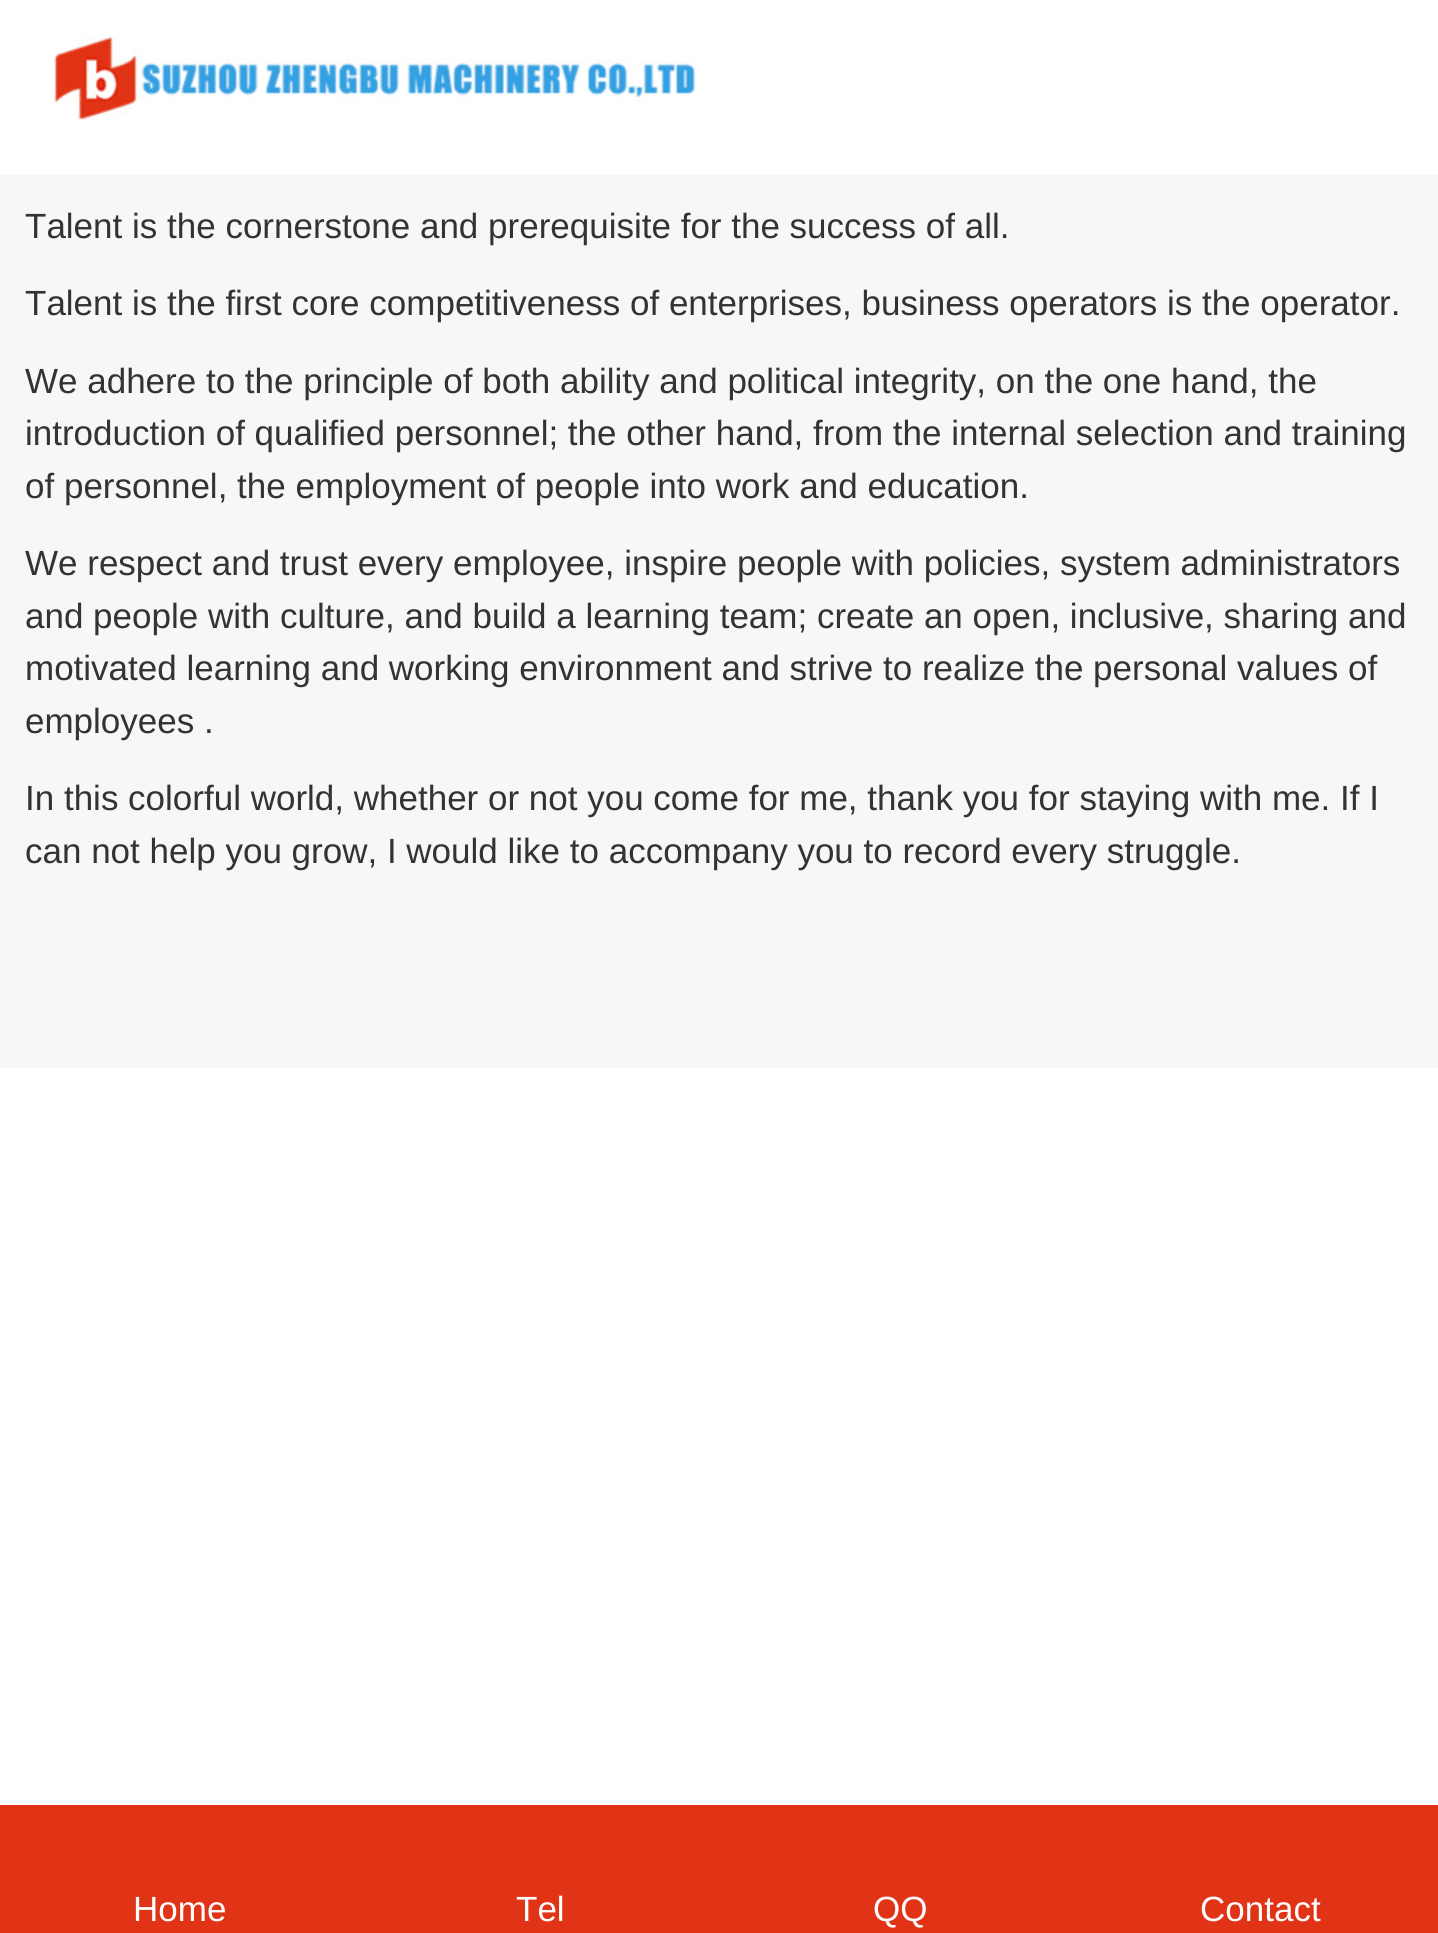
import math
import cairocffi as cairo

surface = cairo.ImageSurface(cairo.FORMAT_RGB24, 1438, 1933)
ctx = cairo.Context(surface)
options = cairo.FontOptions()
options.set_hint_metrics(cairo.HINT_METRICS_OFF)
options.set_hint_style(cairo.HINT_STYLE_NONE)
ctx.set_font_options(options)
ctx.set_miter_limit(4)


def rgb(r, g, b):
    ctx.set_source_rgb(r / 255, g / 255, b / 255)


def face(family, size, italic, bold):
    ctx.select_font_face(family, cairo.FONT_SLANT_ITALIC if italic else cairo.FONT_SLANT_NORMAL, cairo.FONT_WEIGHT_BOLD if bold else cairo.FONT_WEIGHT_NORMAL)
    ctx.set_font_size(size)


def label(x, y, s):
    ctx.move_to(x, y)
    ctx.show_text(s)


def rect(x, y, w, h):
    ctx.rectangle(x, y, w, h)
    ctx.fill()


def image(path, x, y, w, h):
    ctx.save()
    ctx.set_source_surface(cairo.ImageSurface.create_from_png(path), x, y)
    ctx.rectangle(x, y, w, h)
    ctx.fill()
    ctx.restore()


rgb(255, 255, 255)
ctx.paint()
image('image0.png', 54, 36, 643, 86)
rgb(247, 247, 247)
rect(0, 175, 1438, 893)
face('Liberation Sans', 35, 0, 0)
rgb(51, 51, 51)
label(25, 238, 'Talent is the cornerstone and prerequisite for the success of all.')
label(25, 315, 'Talent is the first core competitiveness of enterprises, business operators is the operator.')
label(25, 393, 'We adhere to the principle of both ability and political integrity, on the one hand, the')
label(25, 445, 'introduction of qualified personnel; the other hand, from the internal selection and training')
label(25, 498, 'of personnel, the employment of people into work and education.')
label(25, 575, 'We respect and trust every employee, inspire people with policies, system administrators')
label(25, 628, 'and people with culture, and build a learning team; create an open, inclusive, sharing and')
label(25, 680, 'motivated learning and working environment and strive to realize the personal values of')
label(25, 733, 'employees .')
label(25, 810, 'In this colorful world, whether or not you come for me, thank you for staying with me. If I')
label(25, 863, 'can not help you grow, I would like to accompany you to record every struggle.')
rgb(225, 52, 22)
rect(0, 1805, 1438, 128)
rgb(255, 255, 255)
label(133, 1921, 'Home')
label(516, 1921, 'Tel')
label(873, 1921, 'QQ')
label(1200, 1921, 'Contact')
surface.write_to_png('render.png')
